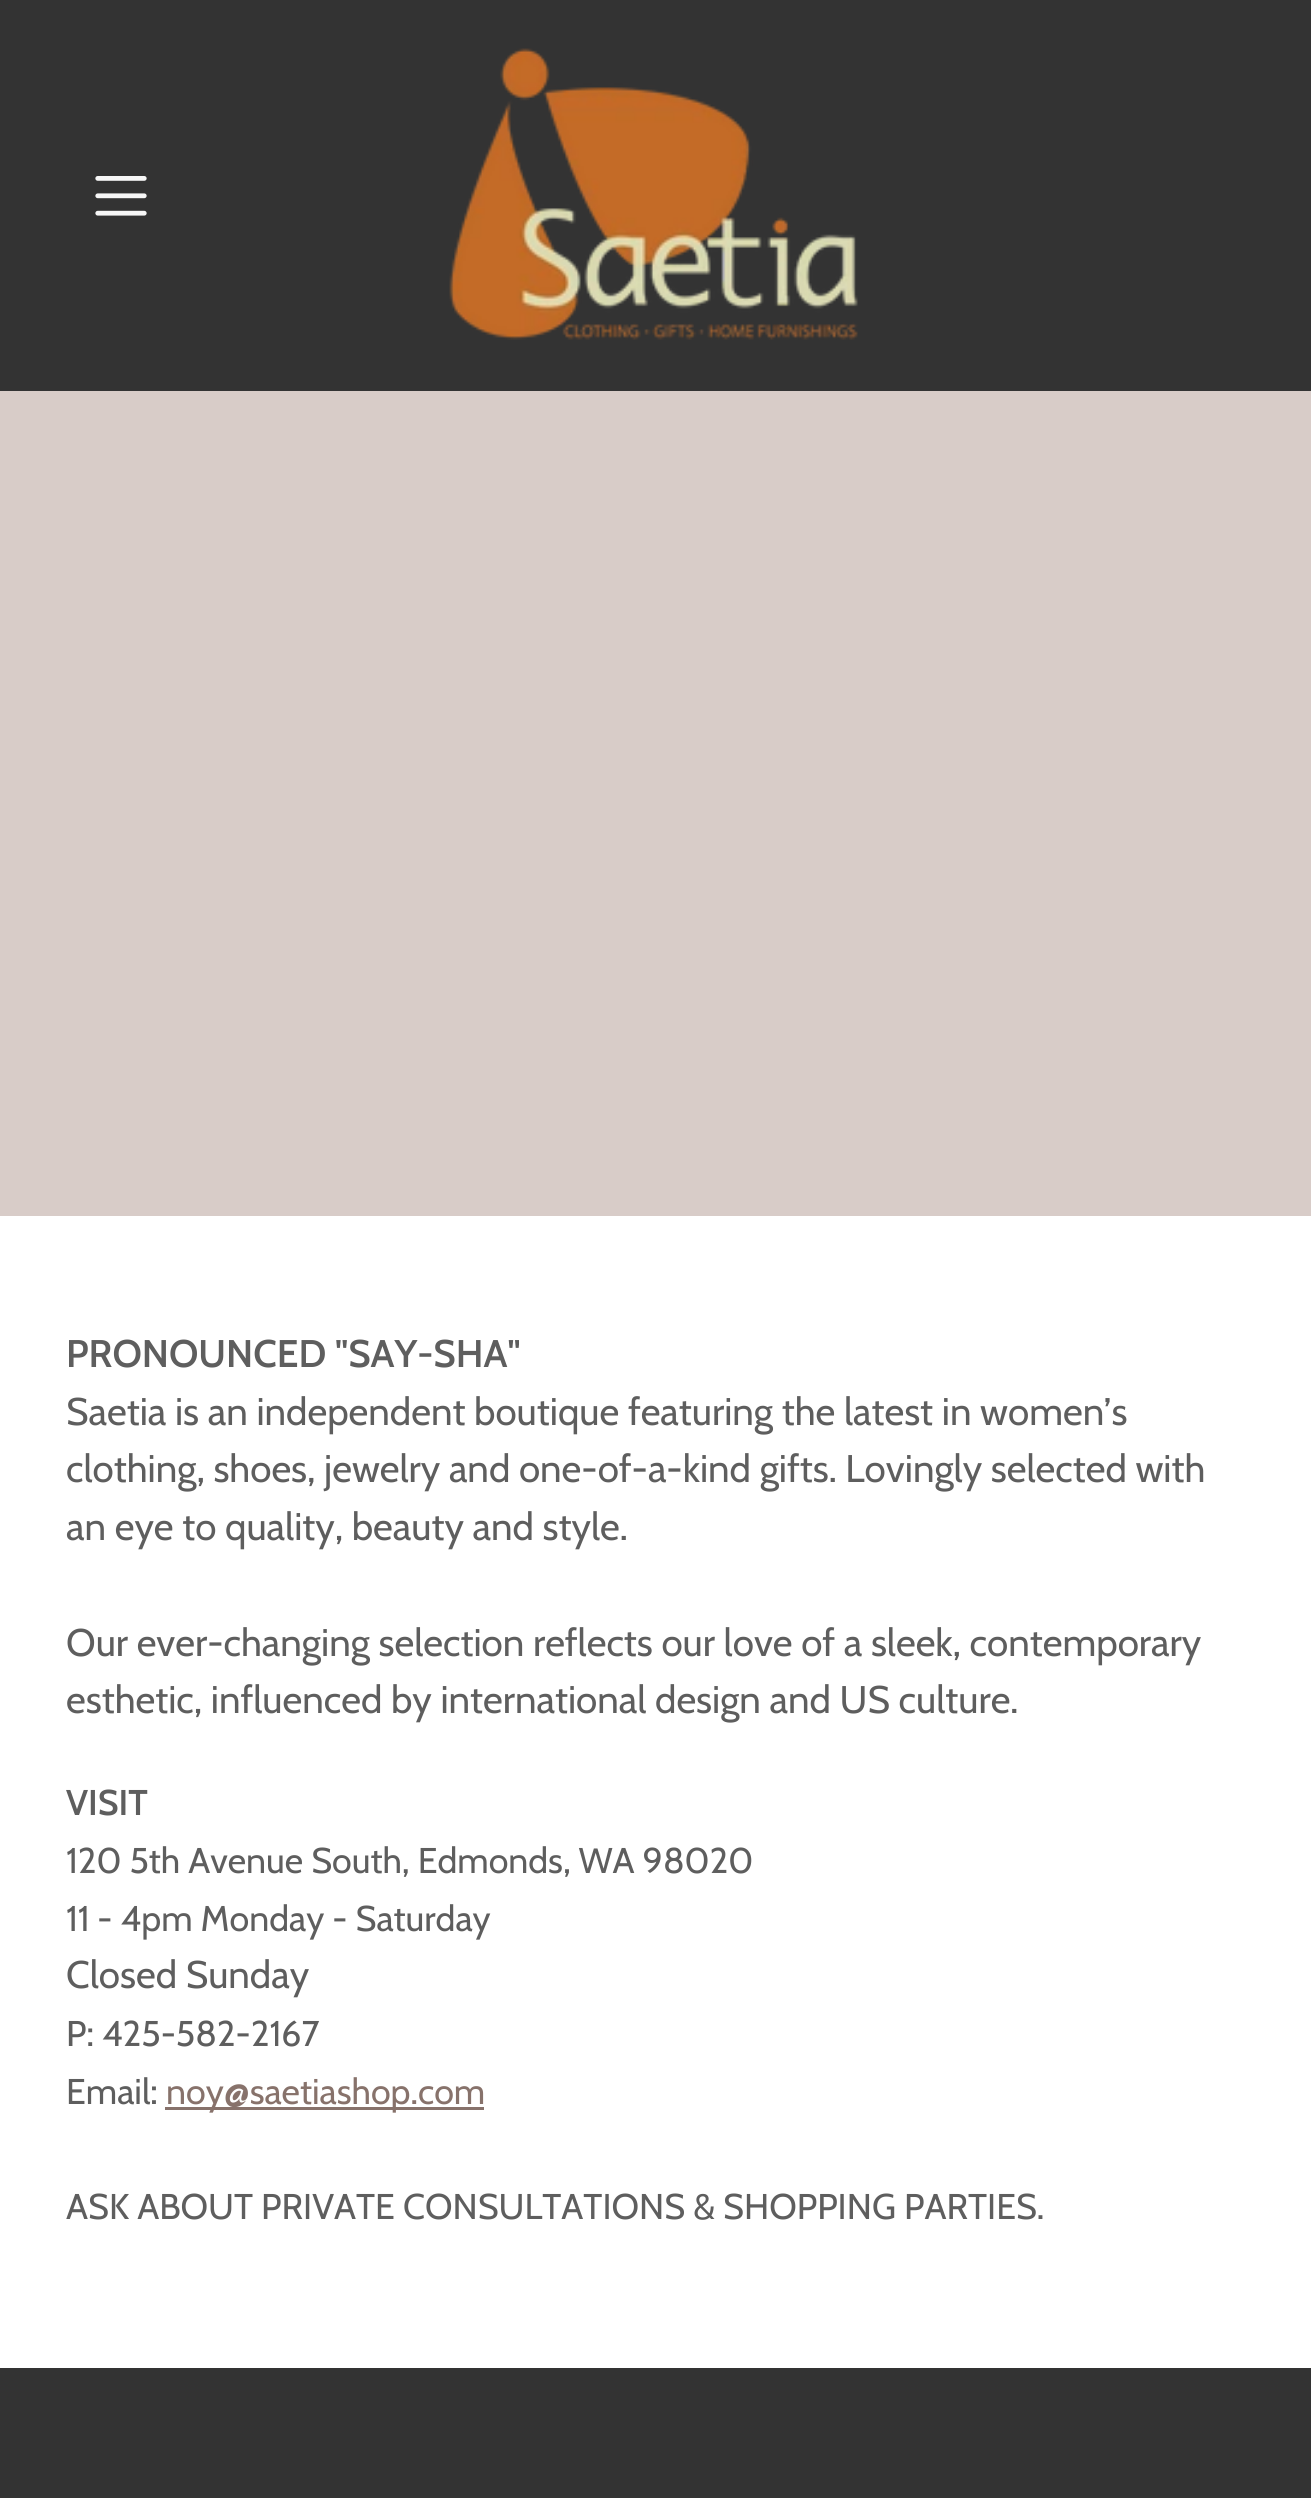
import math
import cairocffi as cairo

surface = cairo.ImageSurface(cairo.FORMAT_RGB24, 1311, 2498)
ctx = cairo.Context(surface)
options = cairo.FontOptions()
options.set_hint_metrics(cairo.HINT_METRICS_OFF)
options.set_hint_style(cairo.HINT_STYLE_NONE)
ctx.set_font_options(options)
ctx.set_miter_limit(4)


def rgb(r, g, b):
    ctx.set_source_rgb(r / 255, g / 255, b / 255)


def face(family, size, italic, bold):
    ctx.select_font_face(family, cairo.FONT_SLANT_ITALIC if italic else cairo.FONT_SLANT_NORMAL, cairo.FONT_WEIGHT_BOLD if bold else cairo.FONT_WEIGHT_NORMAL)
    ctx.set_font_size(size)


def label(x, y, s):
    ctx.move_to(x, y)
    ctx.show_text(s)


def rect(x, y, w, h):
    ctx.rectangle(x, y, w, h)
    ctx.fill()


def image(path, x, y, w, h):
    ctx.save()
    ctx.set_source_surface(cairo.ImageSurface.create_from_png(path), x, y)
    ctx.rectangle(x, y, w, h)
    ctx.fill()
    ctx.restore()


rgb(51, 51, 51)
ctx.paint()
rgb(216, 204, 200)
rect(0, 391, 1311, 825)
image('image0.png', 95, 176, 52, 40)
image('image1.png', 449, 48, 409, 292)
rgb(255, 255, 255)
rect(0, 1216, 1311, 1152)
face('Cabin SemiBold', 38.5, 0, 0)
rgb(94, 94, 94)
label(66, 1367, 'PRONOUNCED "SAY-SHA"')
face('Cabin', 38.5, 0, 0)
label(66, 1425, 'Saetia is an independent boutique featuring the latest in women’s')
label(66, 1482, 'clothing, shoes, jewelry and one-of-a-kind gifts. Lovingly selected with')
label(66, 1540, 'an eye to quality, beauty and style.')
label(66, 1656, 'Our ever-changing selection reflects our love of a sleek, contemporary')
label(66, 1713, 'esthetic, influenced by international design and US culture.')
face('Cabin SemiBold', 35.75, 0, 0)
label(66, 1815, 'VISIT')
face('Cabin', 35.75, 0, 0)
label(66, 1873, '120 5th Avenue South, Edmonds, WA 98020')
label(66, 1931, '11 - 4pm Monday - Saturday')
face('Cabin', 38.5, 0, 0)
label(66, 1988, 'Closed Sunday')
face('Cabin', 35.75, 0, 0)
label(66, 2046, 'P: 425-582-2167')
label(66, 2104, 'Email:')
rgb(135, 114, 107)
rect(165, 2107, 319, 3)
label(166, 2104, 'noy@saetiashop.com')
rgb(94, 94, 94)
label(66, 2219, 'ASK ABOUT PRIVATE CONSULTATIONS & SHOPPING PARTIES.')
surface.write_to_png('render.png')
